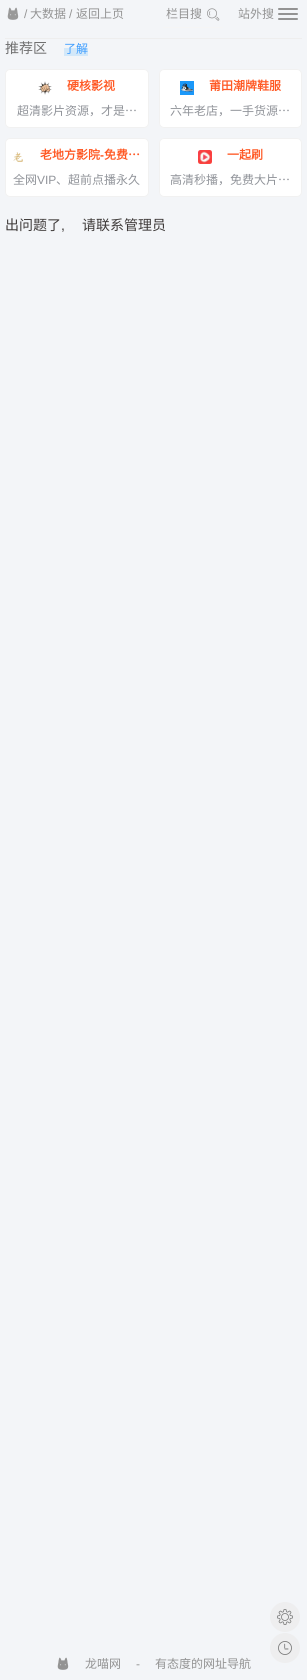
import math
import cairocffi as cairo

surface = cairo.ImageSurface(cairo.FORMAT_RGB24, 307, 1680)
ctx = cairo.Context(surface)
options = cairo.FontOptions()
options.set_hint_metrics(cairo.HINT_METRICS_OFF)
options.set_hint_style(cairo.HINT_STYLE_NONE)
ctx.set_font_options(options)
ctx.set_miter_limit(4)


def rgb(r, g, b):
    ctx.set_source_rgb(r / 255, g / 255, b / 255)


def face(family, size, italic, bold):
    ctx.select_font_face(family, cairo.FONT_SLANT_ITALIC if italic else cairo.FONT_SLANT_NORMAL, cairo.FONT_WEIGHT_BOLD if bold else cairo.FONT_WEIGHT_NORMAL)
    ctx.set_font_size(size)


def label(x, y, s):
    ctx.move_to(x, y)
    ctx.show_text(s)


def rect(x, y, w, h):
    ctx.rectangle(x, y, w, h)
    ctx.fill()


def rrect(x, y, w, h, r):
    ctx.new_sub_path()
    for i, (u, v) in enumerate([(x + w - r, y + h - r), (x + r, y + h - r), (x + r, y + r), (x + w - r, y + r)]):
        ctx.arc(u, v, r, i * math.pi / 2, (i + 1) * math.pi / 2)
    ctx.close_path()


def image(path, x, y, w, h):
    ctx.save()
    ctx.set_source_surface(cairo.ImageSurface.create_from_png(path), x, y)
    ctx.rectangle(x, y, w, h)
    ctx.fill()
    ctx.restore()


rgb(243, 245, 248)
ctx.paint()
image('image0.png', 7, 7, 12, 13)
face('Liberation Sans', 12, 0, 0)
rgb(147, 147, 147)
label(24, 18, '/')
face('Noto Sans CJK SC', 12, 0, 0)
label(30, 18, '大数据')
face('Liberation Sans', 12, 0, 0)
label(69, 18, '/')
face('Noto Sans CJK SC', 12, 0, 0)
label(76, 18, '返回上页')
rgb(245, 245, 245)
rect(163, 27, 60, 1)
rgb(147, 147, 147)
label(166, 18, '栏目搜')
image('image1.png', 207, 8, 13, 13)
label(238, 18, '站外搜')
rrect(278, 13, 20, 2, 1)
ctx.fill()
rrect(278, 8, 20, 2, 1)
ctx.fill()
rrect(278, 18, 20, 2, 1)
ctx.fill()
rgb(238, 238, 238)
rect(5, 38, 297, 1)
face('Noto Sans CJK SC', 14, 0, 0)
rgb(112, 112, 112)
label(5, 53, '推荐区')
rgb(211, 232, 249)
rect(64, 48, 24, 8)
face('Noto Sans CJK SC', 12, 0, 0)
rgb(64, 158, 255)
label(64, 53, '了解')
rgb(255, 255, 255)
rrect(5.5, 69.5, 143, 58, 4.5)
ctx.fill_preserve()
rgb(241, 241, 241)
ctx.set_line_width(1)
ctx.stroke()
image('image2.png', 38, 81, 14, 14)
face('Noto Sans CJK SC', 12, 0, 1)
rgb(255, 87, 34)
label(67, 90, '硬核影视')
face('Noto Sans CJK SC', 12, 0, 0)
rgb(144, 147, 153)
label(17, 115, '超清影片资源，才是…')
rgb(255, 255, 255)
rrect(159.5, 69.5, 142, 58, 4.5)
ctx.fill_preserve()
rgb(241, 241, 241)
ctx.stroke()
image('image3.png', 180, 81, 14, 14)
face('Noto Sans CJK SC', 12, 0, 1)
rgb(255, 87, 34)
label(209, 90, '莆田潮牌鞋服')
face('Noto Sans CJK SC', 12, 0, 0)
rgb(144, 147, 153)
label(170, 115, '六年老店，一手货源…')
rgb(255, 255, 255)
rrect(5.5, 138.5, 143, 58, 4.5)
ctx.fill_preserve()
rgb(241, 241, 241)
ctx.stroke()
image('image4.png', 13, 152, 10, 10)
face('Noto Sans CJK SC', 12, 0, 1)
rgb(255, 87, 34)
label(40, 159, '老地方影院')
face('Liberation Sans', 12, 0, 1)
label(100, 159, '-')
face('Noto Sans CJK SC', 12, 0, 1)
label(104, 159, '免费…')
face('Noto Sans CJK SC', 12, 0, 0)
rgb(144, 147, 153)
label(13, 184, '全网')
face('Liberation Sans', 12, 0, 0)
label(37, 184, 'VIP')
face('Noto Sans CJK SC', 12, 0, 0)
label(56, 184, '、超前点播永久')
rgb(255, 255, 255)
rrect(159.5, 138.5, 142, 58, 4.5)
ctx.fill_preserve()
rgb(241, 241, 241)
ctx.stroke()
image('image5.png', 198, 150, 14, 14)
face('Noto Sans CJK SC', 12, 0, 1)
rgb(255, 87, 34)
label(227, 159, '一起刷')
face('Noto Sans CJK SC', 12, 0, 0)
rgb(144, 147, 153)
label(170, 184, '高清秒播，免费大片…')
face('Noto Sans CJK SC', 14, 0, 0)
rgb(62, 58, 57)
label(5, 230, '出问题了')
face('Liberation Sans', 14, 0, 0)
label(61, 230, ',')
face('Noto Sans CJK SC', 14, 0, 0)
label(82, 230, '请联系管理员')
image('image6.png', 57, 1657, 12, 13)
face('Noto Sans CJK SC', 12, 0, 0)
rgb(147, 147, 147)
label(85, 1668, '龙喵网')
face('Liberation Sans', 12, 0, 0)
label(136, 1668, '-')
face('Noto Sans CJK SC', 12, 0, 0)
label(155, 1668, '有态度的网址导航')
rgb(238, 238, 239)
ctx.new_path()
ctx.arc(285, 1617, 15, 0, 2 * math.pi)
ctx.fill()
image('image7.png', 277, 1609, 16, 16)
ctx.arc(285, 1648, 15, 0, 2 * math.pi)
ctx.fill()
image('image8.png', 278, 1641, 14, 14)
surface.write_to_png('render.png')
